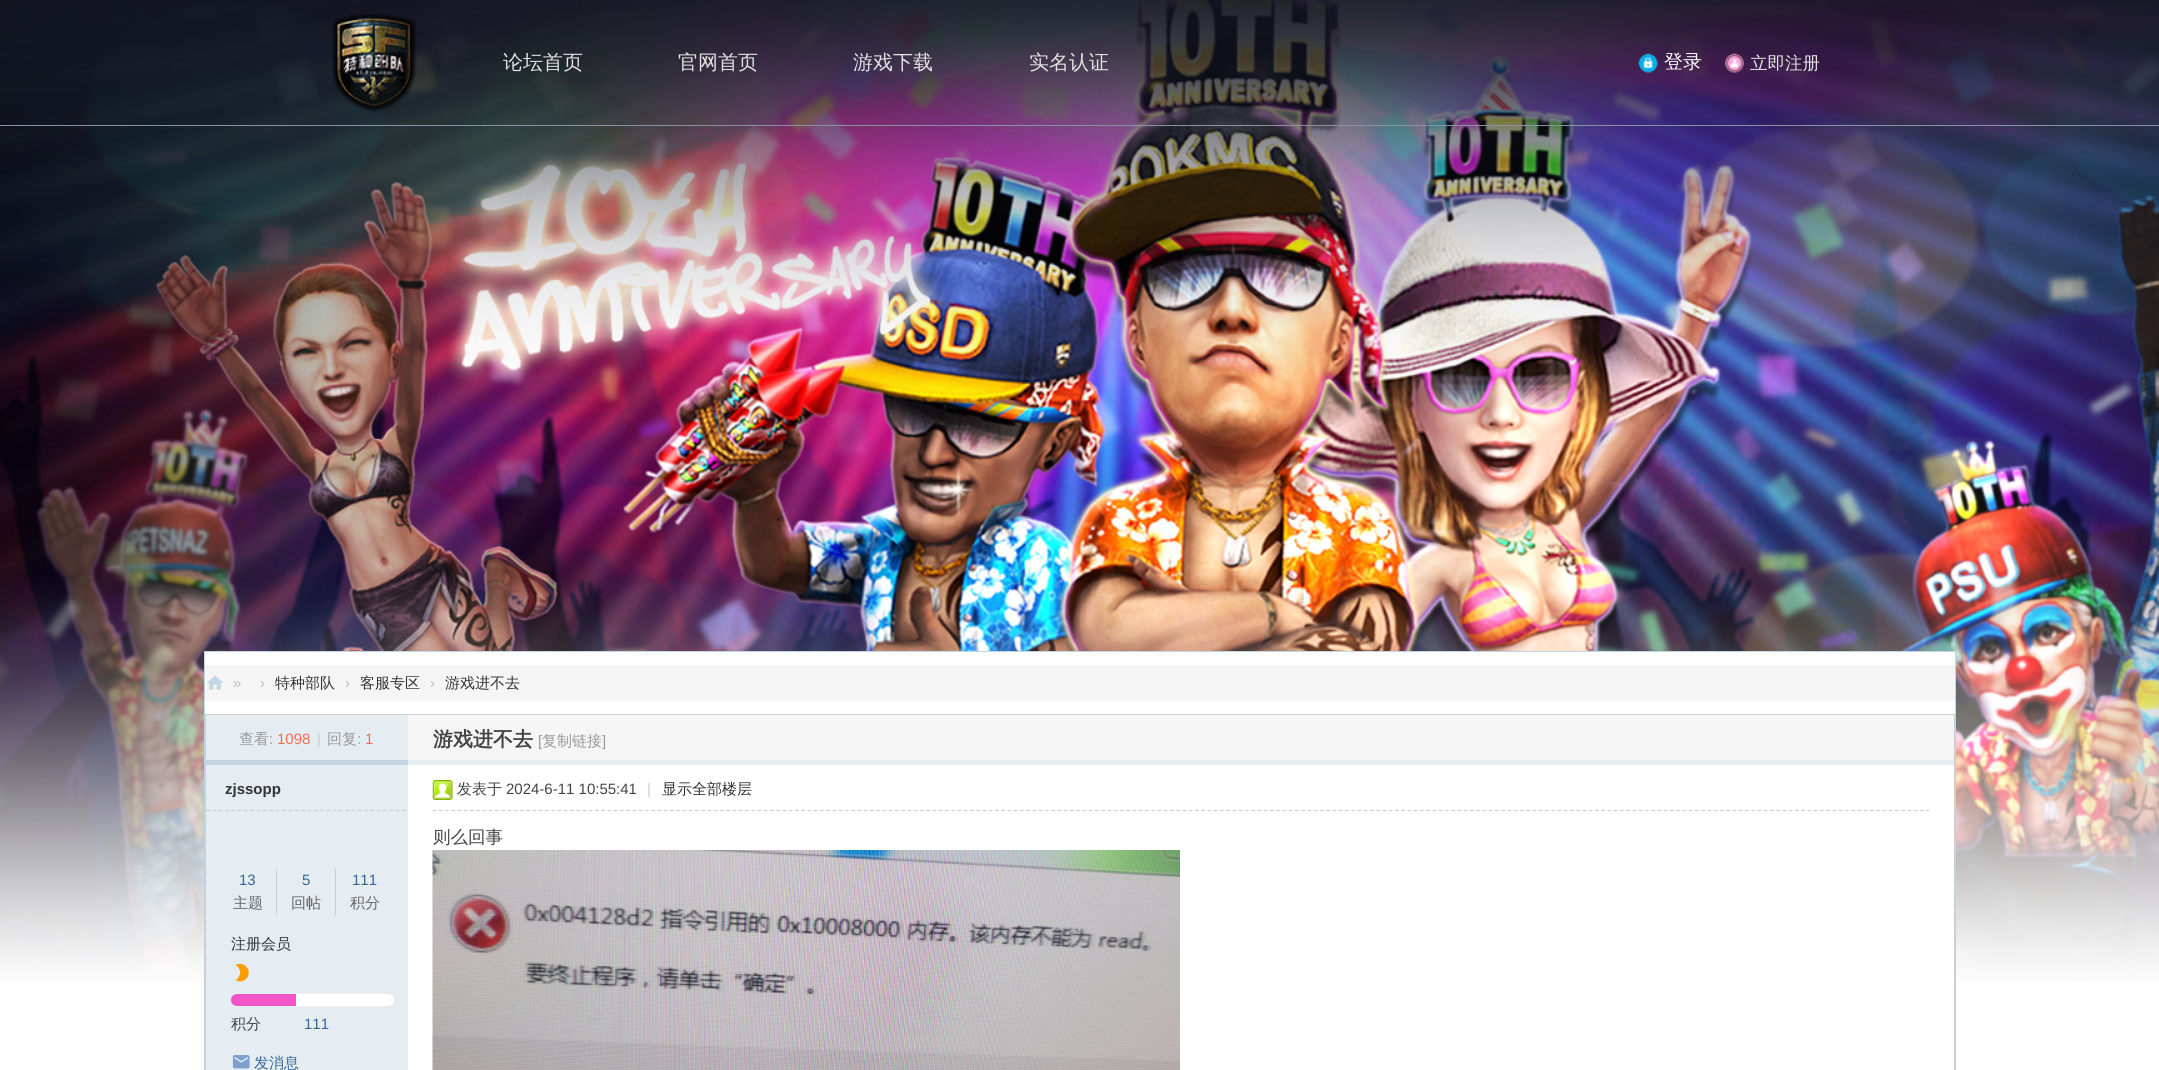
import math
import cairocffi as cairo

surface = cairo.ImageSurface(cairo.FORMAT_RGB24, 2159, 1070)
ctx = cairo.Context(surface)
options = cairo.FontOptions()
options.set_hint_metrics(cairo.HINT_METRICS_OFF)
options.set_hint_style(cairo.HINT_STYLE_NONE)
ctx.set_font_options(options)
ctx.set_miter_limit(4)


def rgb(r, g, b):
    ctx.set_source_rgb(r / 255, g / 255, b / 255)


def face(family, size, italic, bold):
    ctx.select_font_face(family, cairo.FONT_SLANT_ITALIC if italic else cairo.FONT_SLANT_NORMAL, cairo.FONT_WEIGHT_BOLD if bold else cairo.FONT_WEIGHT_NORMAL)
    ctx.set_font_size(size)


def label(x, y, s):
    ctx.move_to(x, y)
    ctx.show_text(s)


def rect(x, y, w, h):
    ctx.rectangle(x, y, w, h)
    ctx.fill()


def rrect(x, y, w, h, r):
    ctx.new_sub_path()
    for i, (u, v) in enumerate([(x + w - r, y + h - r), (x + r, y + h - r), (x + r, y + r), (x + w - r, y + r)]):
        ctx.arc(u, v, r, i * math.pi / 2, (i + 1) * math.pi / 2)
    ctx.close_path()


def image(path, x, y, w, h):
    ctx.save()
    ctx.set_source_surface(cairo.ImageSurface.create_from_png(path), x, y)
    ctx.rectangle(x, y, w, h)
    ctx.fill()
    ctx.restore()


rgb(255, 255, 255)
ctx.paint()
image('image0.png', 0, 0, 2159, 982)
rgb(136, 146, 161)
rect(0, 125, 2159, 1)
image('image1.png', 332, 13, 85, 100)
face('WenQuanYi Zen Hei Medium', 20, 0, 0)
rgb(227, 227, 227)
label(503, 69, '论坛首页')
label(678, 69, '官网首页')
label(853, 69, '游戏下载')
label(1029, 69, '实名认证')
image('image2.png', 1638, 53, 20, 20)
face('WenQuanYi Zen Hei Medium', 19, 0, 0)
rgb(255, 255, 255)
label(1664, 68, '登录')
image('image3.png', 1725, 53, 19, 20)
face('WenQuanYi Zen Hei Medium', 17.5, 0, 0)
rgb(227, 227, 227)
label(1750, 69, '立即注册')
rgb(255, 255, 255)
rect(205, 652, 1750, 330)
ctx.rectangle(204.5, 651.5, 1751, 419)
rgb(194, 213, 227)
ctx.set_line_width(1)
ctx.stroke()
rgb(245, 245, 245)
rect(205, 665, 1750, 36)
image('image4.png', 207, 675, 16, 15)
face('Liberation Sans', 15, 0, 0)
rgb(189, 189, 189)
label(233, 688, '»')
label(260, 688, '›')
face('WenQuanYi Zen Hei Medium', 15, 0, 0)
rgb(51, 51, 51)
label(275, 688, '特种部队')
face('Liberation Sans', 15, 0, 0)
rgb(189, 189, 189)
label(345, 688, '›')
face('WenQuanYi Zen Hei Medium', 15, 0, 0)
rgb(51, 51, 51)
label(360, 688, '客服专区')
face('Liberation Sans', 15, 0, 0)
rgb(189, 189, 189)
label(430, 688, '›')
face('WenQuanYi Zen Hei Medium', 15, 0, 0)
rgb(51, 51, 51)
label(445, 688, '游戏进不去')
ctx.rectangle(205.5, 714.5, 1749, 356)
rgb(205, 205, 205)
ctx.stroke()
rgb(229, 237, 242)
rect(206, 715, 202, 45)
rgb(153, 153, 153)
label(239, 744, '查看')
face('Liberation Sans', 15, 0, 0)
label(269, 744, ':')
rgb(242, 108, 79)
label(277, 744, '1098')
rgb(204, 204, 204)
label(317, 744, '|')
face('WenQuanYi Zen Hei Medium', 15, 0, 0)
rgb(153, 153, 153)
label(327, 744, '回复')
face('Liberation Sans', 15, 0, 0)
label(357, 744, ':')
rgb(242, 108, 79)
label(365, 744, '1')
rgb(245, 245, 245)
rect(408, 715, 1546, 45)
face('WenQuanYi Zen Hei', 20, 0, 1)
rgb(68, 68, 68)
label(433, 746, '游戏进不去')
face('Liberation Sans', 15, 0, 0)
rgb(153, 153, 153)
label(538, 746, '[')
face('WenQuanYi Zen Hei Medium', 15, 0, 0)
label(542, 746, '复制链接')
face('Liberation Sans', 15, 0, 0)
label(602, 746, ']')
rgb(194, 213, 227)
rect(206, 760, 202, 5)
rgb(229, 237, 242)
rect(408, 760, 1546, 5)
rect(206, 765, 202, 305)
ctx.new_path()
ctx.move_to(206, 810.5)
ctx.line_to(406, 810.5)
rgb(205, 205, 205)
ctx.set_line_width(1.2)
ctx.set_dash([3.75, 2.58])
ctx.stroke()
face('Liberation Sans', 15, 0, 1)
rgb(51, 51, 51)
label(225, 794, 'zjssopp')
rgb(204, 204, 204)
rect(276, 869, 1, 46)
face('Liberation Sans', 15, 0, 0)
rgb(51, 102, 153)
label(239, 885, '13')
face('WenQuanYi Zen Hei Medium', 15, 0, 0)
rgb(102, 102, 102)
label(233, 908, '主题')
rgb(204, 204, 204)
rect(335, 869, 1, 46)
face('Liberation Sans', 15, 0, 0)
rgb(51, 102, 153)
label(302, 885, '5')
face('WenQuanYi Zen Hei Medium', 15, 0, 0)
rgb(102, 102, 102)
label(291, 908, '回帖')
face('Liberation Sans', 15, 0, 0)
rgb(51, 102, 153)
label(352, 885, '111')
face('WenQuanYi Zen Hei Medium', 15, 0, 0)
rgb(102, 102, 102)
label(350, 908, '积分')
rgb(51, 51, 51)
label(231, 949, '注册会员')
image('image5.png', 235, 963, 14, 19)
rgb(255, 255, 255)
rrect(231, 994, 163, 12, 6)
ctx.fill()
rgb(241, 85, 200)
ctx.new_path()
ctx.move_to(237, 994)
ctx.line_to(296, 994)
ctx.line_to(296, 1006)
ctx.line_to(237, 1006)
ctx.curve_to(233.5, 1006, 231, 1003.5, 231, 1000)
ctx.curve_to(231, 996.5, 233.5, 994, 237, 994)
ctx.close_path()
ctx.fill()
rgb(68, 68, 68)
label(231, 1029, '积分')
face('Liberation Sans', 15, 0, 0)
rgb(51, 102, 153)
label(304, 1029, '111')
image('image6.png', 232, 1055, 18, 14)
face('WenQuanYi Zen Hei Medium', 15, 0, 0)
label(254, 1068, '发消息')
ctx.new_path()
ctx.move_to(432.5, 810.5)
ctx.line_to(1929, 810.5)
rgb(205, 205, 205)
ctx.set_dash([3.75, 2.5])
ctx.stroke()
image('image7.png', 432, 780, 21, 20)
rgb(68, 68, 68)
label(457, 794, '发表于')
face('Liberation Sans', 15, 0, 0)
label(506, 794, '2024-6-11 10:55:41')
rgb(204, 204, 204)
label(647, 794, '|')
face('WenQuanYi Zen Hei Medium', 15, 0, 0)
rgb(51, 51, 51)
label(662, 794, '显示全部楼层')
face('WenQuanYi Zen Hei Medium', 17.5, 0, 0)
rgb(68, 68, 68)
label(433, 843, '则么回事')
image('image8.png', 432, 850, 748, 220)
surface.write_to_png('render.png')
